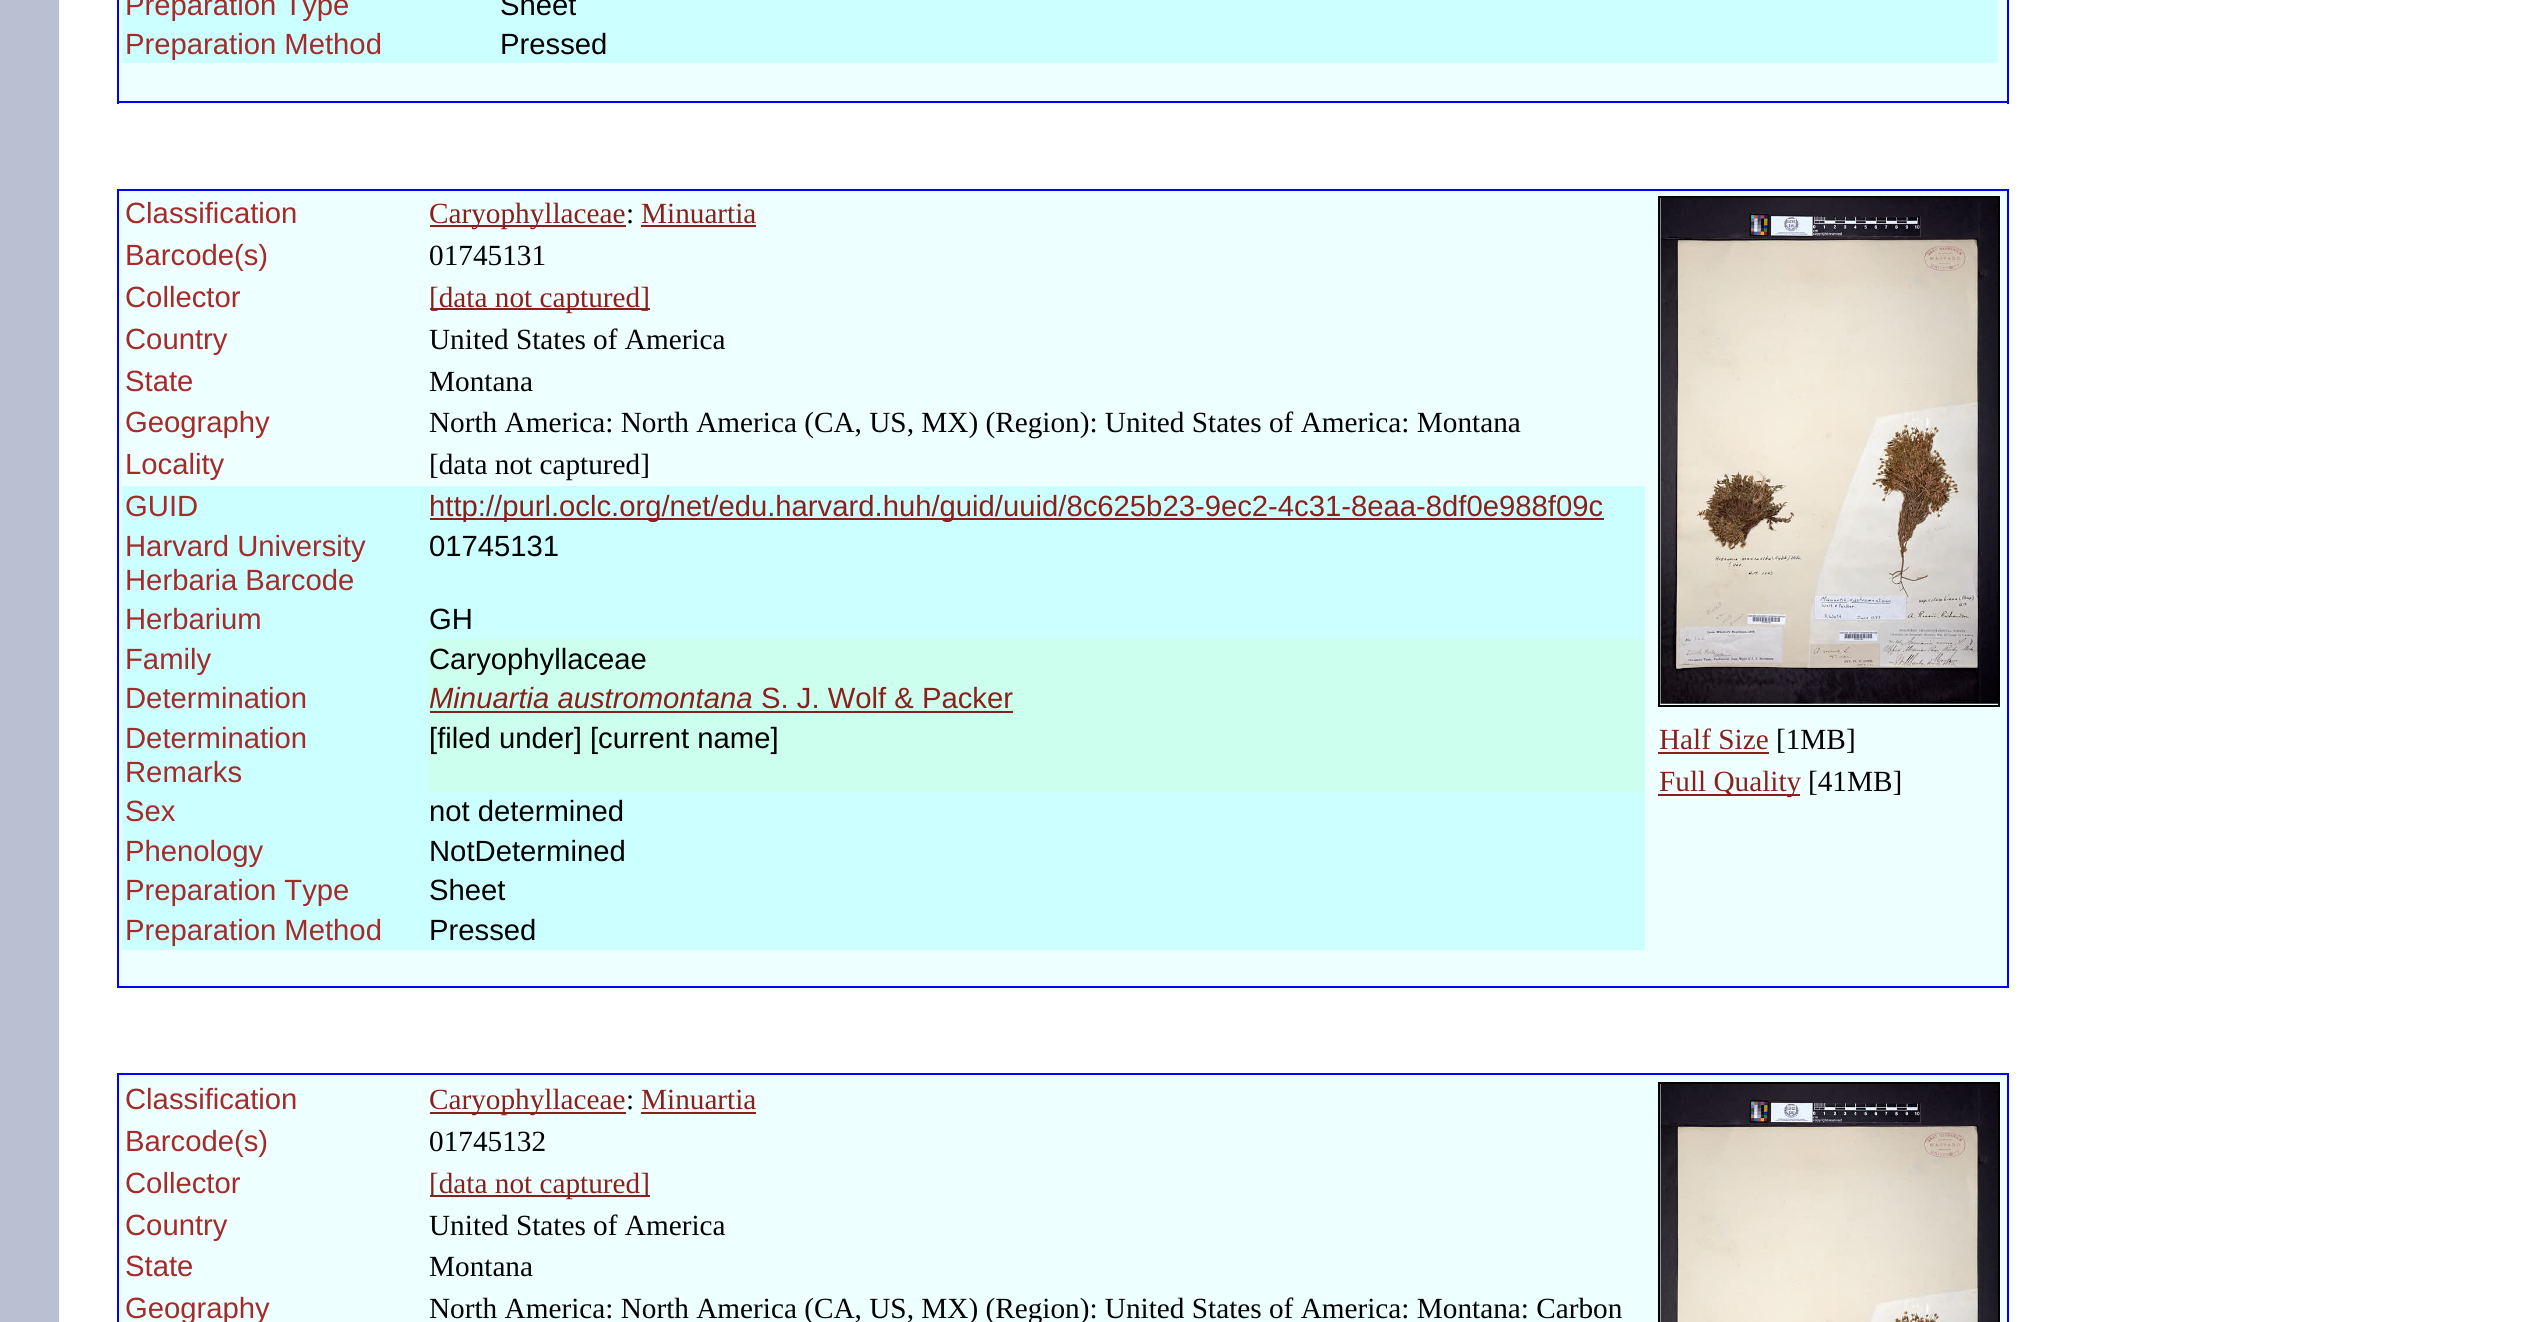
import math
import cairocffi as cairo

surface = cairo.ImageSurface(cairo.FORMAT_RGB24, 2539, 1322)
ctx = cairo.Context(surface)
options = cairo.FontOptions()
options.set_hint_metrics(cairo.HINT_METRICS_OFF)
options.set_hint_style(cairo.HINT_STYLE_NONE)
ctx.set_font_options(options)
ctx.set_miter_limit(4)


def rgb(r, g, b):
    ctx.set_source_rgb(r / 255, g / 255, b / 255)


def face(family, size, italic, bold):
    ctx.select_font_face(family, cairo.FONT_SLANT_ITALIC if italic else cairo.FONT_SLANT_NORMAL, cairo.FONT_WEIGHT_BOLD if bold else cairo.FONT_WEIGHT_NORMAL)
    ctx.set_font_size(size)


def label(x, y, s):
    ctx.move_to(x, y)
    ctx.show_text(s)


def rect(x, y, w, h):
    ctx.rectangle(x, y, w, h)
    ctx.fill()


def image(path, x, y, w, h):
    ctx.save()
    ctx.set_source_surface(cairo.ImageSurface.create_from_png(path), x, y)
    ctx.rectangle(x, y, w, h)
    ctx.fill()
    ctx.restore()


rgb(184, 192, 210)
ctx.paint()
rgb(255, 255, 255)
rect(59, 0, 2480, 1322)
rgb(238, 255, 255)
rect(119, 0, 1888, 104)
rgb(0, 0, 255)
rect(2007, 0, 2, 104)
rect(117, 101, 1892, 2)
rect(117, 0, 2, 104)
rgb(204, 255, 255)
rect(122, 0, 1876, 63)
face('Liberation Sans', 29.25, 0, 0)
rgb(165, 42, 42)
label(125, 15, 'Preparation Type')
rgb(0, 0, 0)
label(500, 15, 'Sheet')
rgb(165, 42, 42)
label(125, 54, 'Preparation Method')
rgb(0, 0, 0)
label(500, 54, 'Pressed')
rgb(238, 255, 255)
rect(119, 191, 1888, 795)
rgb(0, 0, 255)
rect(117, 189, 1892, 2)
rect(2007, 189, 2, 799)
rect(117, 986, 1892, 2)
rect(117, 189, 2, 799)
rgb(165, 42, 42)
label(125, 223, 'Classification')
rgb(137, 32, 27)
rect(430, 225, 196, 2)
face('Liberation Serif', 29.25, 0, 0)
label(429, 223, 'Caryophyllaceae')
rgb(0, 0, 0)
label(626, 223, ':')
rgb(137, 32, 27)
label(641, 223, 'Minuartia')
rect(641, 225, 115, 2)
face('Liberation Sans', 29.25, 0, 0)
rgb(165, 42, 42)
label(125, 265, 'Barcode(s)')
face('Liberation Serif', 29.25, 0, 0)
rgb(0, 0, 0)
label(429, 265, '01745131')
face('Liberation Sans', 29.25, 0, 0)
rgb(165, 42, 42)
label(125, 307, 'Collector')
rgb(137, 32, 27)
rect(430, 308, 220, 2)
face('Liberation Serif', 29.25, 0, 0)
label(429, 307, '[data not captured]')
face('Liberation Sans', 29.25, 0, 0)
rgb(165, 42, 42)
label(125, 349, 'Country')
face('Liberation Serif', 29.25, 0, 0)
rgb(0, 0, 0)
label(429, 349, 'United States of America')
face('Liberation Sans', 29.25, 0, 0)
rgb(165, 42, 42)
label(125, 391, 'State')
face('Liberation Serif', 29.25, 0, 0)
rgb(0, 0, 0)
label(429, 391, 'Montana')
face('Liberation Sans', 29.25, 0, 0)
rgb(165, 42, 42)
label(125, 432, 'Geography')
face('Liberation Serif', 29.25, 0, 0)
rgb(0, 0, 0)
label(429, 432, 'North America: North America (CA, US, MX) (Region): United States of America: Montana')
face('Liberation Sans', 29.25, 0, 0)
rgb(165, 42, 42)
label(125, 474, 'Locality')
face('Liberation Serif', 29.25, 0, 0)
rgb(0, 0, 0)
label(429, 474, '[data not captured]')
rgb(204, 255, 255)
rect(122, 486, 1523, 153)
face('Liberation Sans', 29.25, 0, 0)
rgb(165, 42, 42)
label(125, 516, 'GUID')
rgb(137, 32, 27)
rect(430, 518, 1174, 2)
label(429, 516, 'http://purl.oclc.org/net/edu.harvard.huh/guid/uuid/8c625b23-9ec2-4c31-8eaa-8df0e988f09c')
rgb(165, 42, 42)
label(125, 556, 'Harvard University')
label(125, 590, 'Herbaria Barcode')
rgb(0, 0, 0)
label(429, 556, '01745131')
rgb(165, 42, 42)
label(125, 629, 'Herbarium')
rgb(0, 0, 0)
label(429, 629, 'GH')
rgb(204, 255, 255)
rect(122, 639, 306, 153)
rgb(165, 42, 42)
label(125, 669, 'Family')
rgb(204, 255, 238)
rect(428, 639, 1217, 153)
rgb(0, 0, 0)
label(429, 669, 'Caryophyllaceae')
rgb(165, 42, 42)
label(125, 708, 'Determination')
face('Liberation Sans', 29.25, 1, 0)
rgb(137, 32, 27)
label(429, 708, 'Minuartia austromontana')
rect(430, 711, 583, 2)
face('Liberation Sans', 29.25, 0, 0)
label(761, 708, 'S. J. Wolf & Packer')
rgb(165, 42, 42)
label(125, 748, 'Determination')
label(125, 782, 'Remarks')
rgb(0, 0, 0)
label(429, 748, '[filed under] [current name]')
rgb(204, 255, 255)
rect(122, 792, 1523, 158)
rgb(165, 42, 42)
label(125, 821, 'Sex')
rgb(0, 0, 0)
label(429, 821, 'not determined')
rgb(165, 42, 42)
label(125, 861, 'Phenology')
rgb(0, 0, 0)
label(429, 861, 'NotDetermined')
rgb(165, 42, 42)
label(125, 900, 'Preparation Type')
rgb(0, 0, 0)
label(429, 900, 'Sheet')
rgb(165, 42, 42)
label(125, 940, 'Preparation Method')
rgb(0, 0, 0)
label(429, 940, 'Pressed')
ctx.rectangle(1659, 197, 340, 509)
ctx.stroke()
image('image0.png', 1660, 197, 338, 507)
face('Liberation Serif', 29.25, 0, 0)
rgb(137, 32, 27)
label(1659, 749, 'Half Size')
rect(1658, 752, 111, 2)
rgb(0, 0, 0)
label(1776, 749, '[1MB]')
rgb(137, 32, 27)
rect(1658, 794, 142, 2)
label(1659, 791, 'Full Quality')
rgb(0, 0, 0)
label(1808, 791, '[41MB]')
rgb(238, 255, 255)
rect(119, 1075, 1888, 247)
rgb(0, 0, 255)
rect(117, 1073, 1892, 2)
rect(2007, 1073, 2, 249)
rect(117, 1073, 2, 249)
face('Liberation Sans', 29.25, 0, 0)
rgb(165, 42, 42)
label(125, 1109, 'Classification')
rgb(137, 32, 27)
rect(430, 1112, 196, 2)
face('Liberation Serif', 29.25, 0, 0)
label(429, 1109, 'Caryophyllaceae')
rgb(0, 0, 0)
label(626, 1109, ':')
rgb(137, 32, 27)
label(641, 1109, 'Minuartia')
rect(641, 1112, 115, 2)
face('Liberation Sans', 29.25, 0, 0)
rgb(165, 42, 42)
label(125, 1151, 'Barcode(s)')
face('Liberation Serif', 29.25, 0, 0)
rgb(0, 0, 0)
label(429, 1151, '01745132')
face('Liberation Sans', 29.25, 0, 0)
rgb(165, 42, 42)
label(125, 1193, 'Collector')
rgb(137, 32, 27)
rect(430, 1195, 220, 2)
face('Liberation Serif', 29.25, 0, 0)
label(429, 1193, '[data not captured]')
face('Liberation Sans', 29.25, 0, 0)
rgb(165, 42, 42)
label(125, 1235, 'Country')
face('Liberation Serif', 29.25, 0, 0)
rgb(0, 0, 0)
label(429, 1235, 'United States of America')
face('Liberation Sans', 29.25, 0, 0)
rgb(165, 42, 42)
label(125, 1276, 'State')
face('Liberation Serif', 29.25, 0, 0)
rgb(0, 0, 0)
label(429, 1276, 'Montana')
face('Liberation Sans', 29.25, 0, 0)
rgb(165, 42, 42)
label(125, 1318, 'Geography')
face('Liberation Serif', 29.25, 0, 0)
rgb(0, 0, 0)
label(429, 1318, 'North America: North America (CA, US, MX) (Region): United States of America: Montana: Carbon')
ctx.rectangle(1659, 1083, 340, 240)
ctx.stroke()
image('image1.png', 1660, 1084, 338, 238)
surface.write_to_png('render.png')
